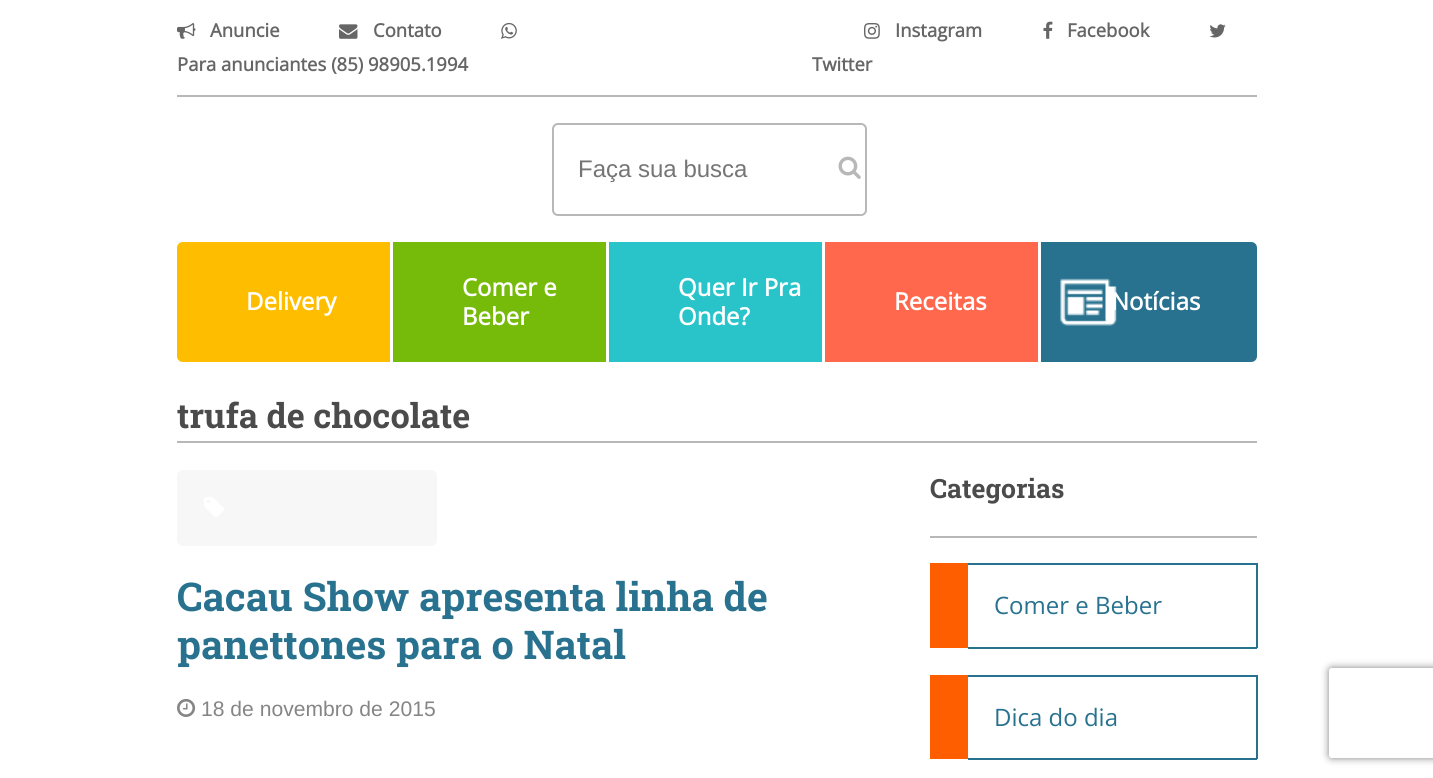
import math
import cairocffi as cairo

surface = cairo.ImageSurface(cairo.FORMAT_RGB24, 1433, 778)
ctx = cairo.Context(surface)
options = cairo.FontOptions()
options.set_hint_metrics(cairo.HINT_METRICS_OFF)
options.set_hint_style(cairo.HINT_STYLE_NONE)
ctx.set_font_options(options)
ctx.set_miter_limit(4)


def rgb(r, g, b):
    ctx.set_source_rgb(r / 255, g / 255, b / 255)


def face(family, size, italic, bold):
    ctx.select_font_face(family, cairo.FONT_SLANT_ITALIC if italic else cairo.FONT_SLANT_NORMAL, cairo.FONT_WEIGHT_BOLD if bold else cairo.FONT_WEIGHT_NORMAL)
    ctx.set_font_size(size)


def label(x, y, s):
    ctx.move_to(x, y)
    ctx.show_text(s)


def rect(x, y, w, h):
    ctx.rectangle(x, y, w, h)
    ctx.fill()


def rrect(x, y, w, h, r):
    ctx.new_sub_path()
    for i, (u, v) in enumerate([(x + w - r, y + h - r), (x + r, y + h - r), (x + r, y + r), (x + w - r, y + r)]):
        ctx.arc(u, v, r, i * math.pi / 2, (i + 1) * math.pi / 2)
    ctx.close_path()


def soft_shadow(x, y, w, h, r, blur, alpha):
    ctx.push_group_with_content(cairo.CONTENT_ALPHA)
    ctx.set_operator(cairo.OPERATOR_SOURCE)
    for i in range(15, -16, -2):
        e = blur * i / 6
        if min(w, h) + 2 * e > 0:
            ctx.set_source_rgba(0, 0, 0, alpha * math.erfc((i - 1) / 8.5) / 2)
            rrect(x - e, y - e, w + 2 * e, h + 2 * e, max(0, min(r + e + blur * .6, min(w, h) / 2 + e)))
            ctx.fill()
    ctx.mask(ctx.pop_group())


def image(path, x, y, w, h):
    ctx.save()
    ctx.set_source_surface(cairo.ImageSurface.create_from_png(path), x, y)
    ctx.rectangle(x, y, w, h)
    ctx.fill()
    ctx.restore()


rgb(255, 255, 255)
ctx.paint()
rgb(184, 184, 184)
rect(177, 95, 1080, 2)
image('image0.png', 177, 23, 19, 16)
face('Open Sans', 18.5, 0, 1)
rgb(102, 102, 102)
label(210, 37, 'Anuncie')
image('image1.png', 339, 24, 19, 15)
label(373, 37, 'Contato')
image('image2.png', 501, 22, 16, 17)
label(177, 71, 'Para anunciantes (85) 98905.1994')
image('image3.png', 864, 23, 16, 16)
label(895, 37, 'Instagram')
image('image4.png', 1043, 21, 10, 18)
label(1067, 37, 'Facebook')
image('image5.png', 1209, 24, 17, 14)
label(812, 71, 'Twitter')
rrect(553, 124, 313, 91, 5)
rgb(184, 184, 184)
ctx.stroke()
face('Liberation Sans', 24, 0, 0)
rgb(117, 117, 117)
label(578, 177, 'Faça sua busca')
image('image6.png', 838, 156, 23, 23)
rgb(255, 189, 0)
ctx.new_path()
ctx.move_to(183, 242)
ctx.line_to(390, 242)
ctx.line_to(390, 362)
ctx.line_to(183, 362)
ctx.curve_to(179.5, 362, 177, 359.5, 177, 356)
ctx.line_to(177, 248)
ctx.curve_to(177, 244.5, 179.5, 242, 183, 242)
ctx.close_path()
ctx.fill()
face('Open Sans', 24, 0, 1)
rgb(255, 255, 255)
label(246, 310, 'Delivery')
rgb(118, 186, 10)
rect(393, 242, 213, 120)
rgb(255, 255, 255)
label(462, 296, 'Comer e')
label(462, 325, 'Beber')
rgb(41, 196, 202)
rect(609, 242, 213, 120)
rgb(255, 255, 255)
label(678, 296, 'Quer Ir Pra')
label(678, 325, 'Onde?')
rgb(255, 104, 77)
rect(825, 242, 213, 120)
rgb(255, 255, 255)
label(894, 310, 'Receitas')
rgb(40, 114, 143)
ctx.new_path()
ctx.move_to(1041, 242)
ctx.line_to(1251, 242)
ctx.curve_to(1254.5, 242, 1257, 244.5, 1257, 248)
ctx.line_to(1257, 356)
ctx.curve_to(1257, 359.5, 1254.5, 362, 1251, 362)
ctx.line_to(1041, 362)
ctx.close_path()
ctx.fill()
image('image7.png', 1060, 278, 57, 48)
rgb(255, 255, 255)
label(1111, 310, 'Notícias')
rgb(184, 184, 184)
rect(177, 441, 1080, 2)
face('Roboto Slab', 34.25, 0, 1)
rgb(75, 75, 75)
label(177, 428, 'trufa de chocolate')
rgb(247, 247, 247)
rrect(177, 470, 260, 76, 6)
ctx.fill()
image('image8.png', 204, 497, 20, 20)
face('Roboto Slab', 39.6, 0, 1)
rgb(40, 114, 143)
label(177, 611, 'Cacau Show apresenta linha de')
label(177, 659, 'panettones para o Natal')
image('image9.png', 177, 698, 19, 19)
face('Liberation Sans', 21.1, 0, 0)
rgb(133, 133, 133)
label(201, 716, '18 de novembro de 2015')
rgb(184, 184, 184)
rect(930, 536, 327, 2)
face('Roboto Slab', 26.5, 0, 1)
rgb(75, 75, 75)
label(930, 498, 'Categorias')
rgb(254, 94, 0)
rect(930, 563, 38, 85)
rgb(40, 114, 143)
rect(968, 563, 289, 2)
rect(1256, 563, 2, 85)
rect(968, 647, 289, 2)
face('Open Sans', 24, 0, 0)
label(994, 614, 'Comer e Beber')
rgb(254, 94, 0)
rect(930, 675, 38, 84)
rgb(40, 114, 143)
rect(968, 675, 289, 2)
rect(1256, 675, 2, 84)
rect(968, 758, 289, 2)
label(994, 726, 'Dica do dia')
ctx.save()
ctx.set_fill_rule(cairo.FILL_RULE_EVEN_ODD)
ctx.new_path()
ctx.move_to(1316, 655)
ctx.line_to(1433, 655)
ctx.line_to(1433, 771)
ctx.line_to(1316, 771)
ctx.close_path()
ctx.move_to(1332, 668)
ctx.line_to(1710, 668)
ctx.curve_to(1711.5, 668, 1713, 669.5, 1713, 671)
ctx.line_to(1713, 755)
ctx.curve_to(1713, 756.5, 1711.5, 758, 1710, 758)
ctx.line_to(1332, 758)
ctx.curve_to(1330.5, 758, 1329, 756.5, 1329, 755)
ctx.line_to(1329, 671)
ctx.curve_to(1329, 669.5, 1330.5, 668, 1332, 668)
ctx.close_path()
ctx.clip()
rgb(128, 128, 128)
soft_shadow(1329, 668, 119, 90, 3, 4, 1)
ctx.restore()
surface.write_to_png('render.png')
